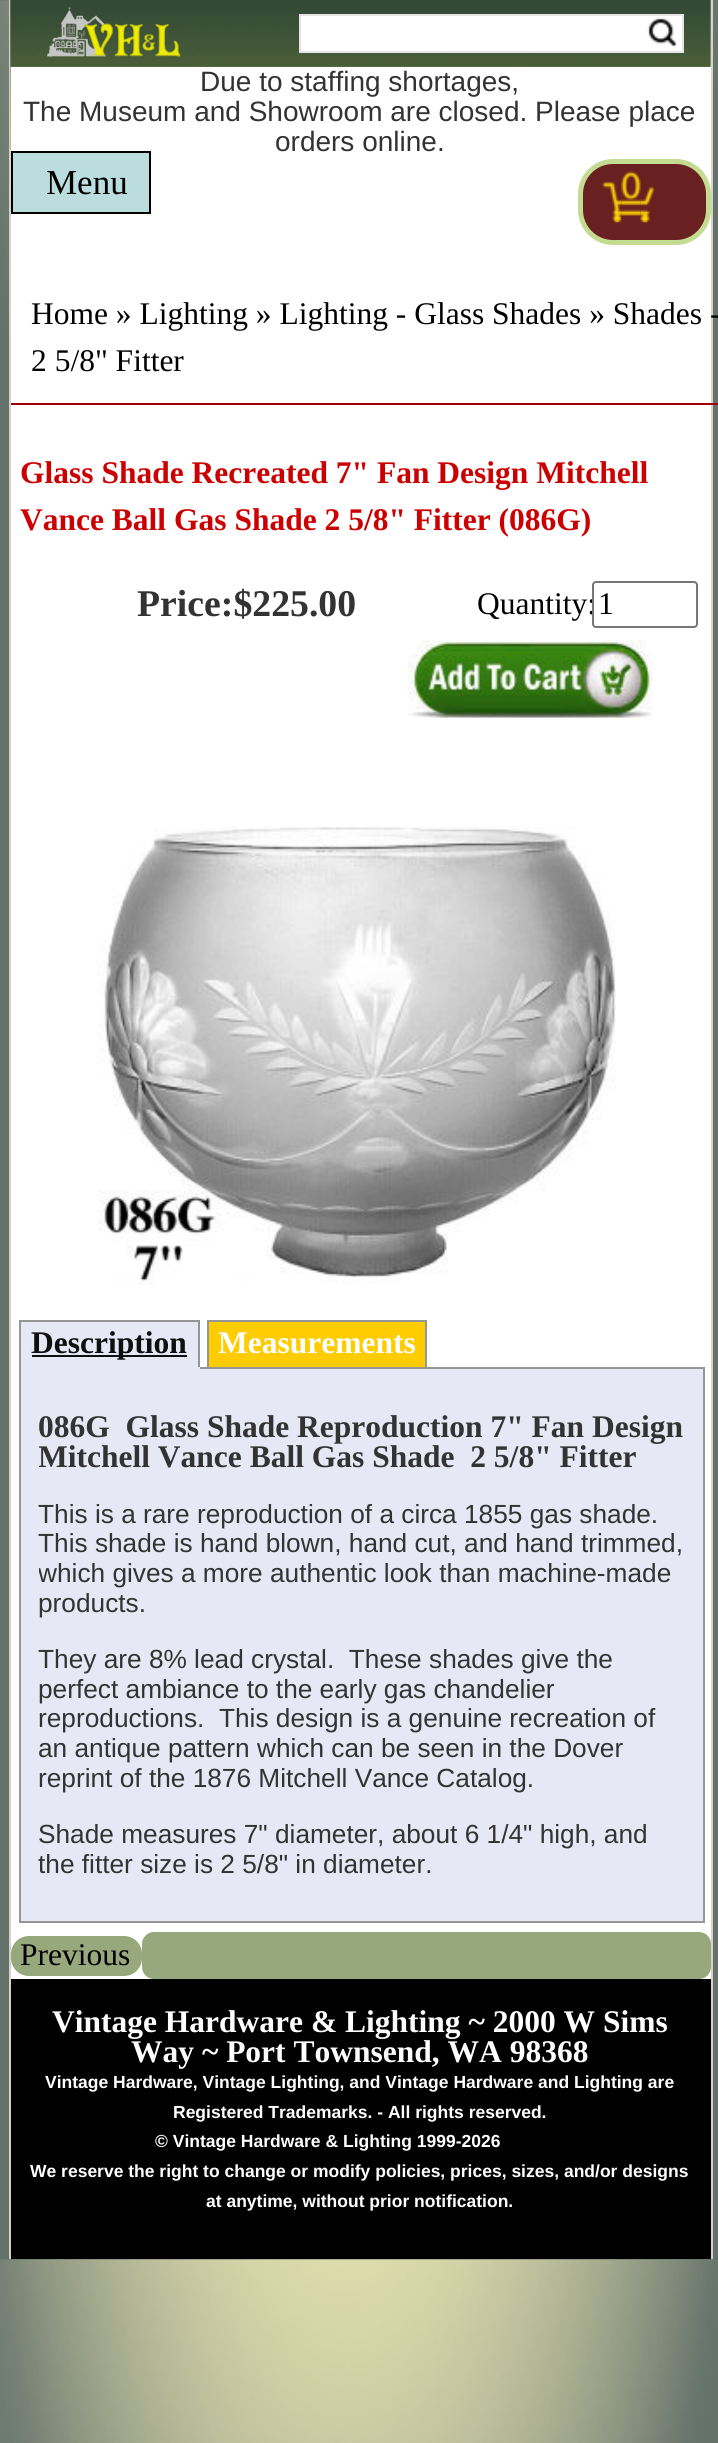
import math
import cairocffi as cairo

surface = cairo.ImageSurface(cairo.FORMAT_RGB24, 718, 2443)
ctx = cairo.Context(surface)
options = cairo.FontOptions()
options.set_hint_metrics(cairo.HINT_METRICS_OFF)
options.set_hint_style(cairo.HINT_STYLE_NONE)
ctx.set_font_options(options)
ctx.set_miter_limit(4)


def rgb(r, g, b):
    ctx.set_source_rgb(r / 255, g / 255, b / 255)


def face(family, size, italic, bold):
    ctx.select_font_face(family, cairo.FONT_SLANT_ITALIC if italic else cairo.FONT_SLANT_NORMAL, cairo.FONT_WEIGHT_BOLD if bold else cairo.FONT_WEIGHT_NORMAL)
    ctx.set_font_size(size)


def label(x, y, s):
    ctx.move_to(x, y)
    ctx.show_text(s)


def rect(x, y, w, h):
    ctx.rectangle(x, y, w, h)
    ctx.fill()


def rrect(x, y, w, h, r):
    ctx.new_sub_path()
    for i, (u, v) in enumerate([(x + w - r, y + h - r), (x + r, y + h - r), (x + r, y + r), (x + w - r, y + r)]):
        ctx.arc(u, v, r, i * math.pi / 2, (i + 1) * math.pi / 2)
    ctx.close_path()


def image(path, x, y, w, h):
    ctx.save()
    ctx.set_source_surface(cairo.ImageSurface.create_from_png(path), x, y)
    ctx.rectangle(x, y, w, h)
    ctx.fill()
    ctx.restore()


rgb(255, 255, 255)
ctx.paint()
image('image0.png', 0, 0, 718, 2443)
rgb(255, 255, 255)
rect(11, 0, 700, 1979)
rgb(215, 209, 201)
rect(711, 0, 2, 2259)
rect(9, 0, 2, 2259)
image('image1.png', 10, 0, 701, 151)
image('image2.png', 10, 0, 701, 67)
image('image3.png', 47, 7, 134, 50)
rgb(255, 255, 255)
ctx.rectangle(300, 15, 383, 37)
ctx.fill_preserve()
rgb(229, 229, 229)
ctx.stroke()
image('image4.png', 647, 17, 30, 30)
rgb(255, 255, 255)
rect(11, 67, 700, 84)
face('Liberation Sans', 28, 0, 0)
rgb(51, 51, 51)
label(200, 91, 'Due to staffing shortages,')
label(23, 121, 'The Museum and Showroom are closed. Please place')
label(275, 151, 'orders online.')
rgb(188, 221, 221)
ctx.rectangle(12, 152, 138, 61)
ctx.fill_preserve()
rgb(0, 0, 0)
ctx.stroke()
face('Liberation Serif', 35, 0, 0)
label(46, 194, 'Menu')
rgb(104, 32, 32)
rrect(580.5, 161.5, 128, 81, 32.5)
ctx.fill_preserve()
rgb(196, 219, 146)
ctx.set_line_width(5)
ctx.stroke()
image('image5.png', 602, 182, 20, 41)
image('image6.png', 621, 171, 20, 45)
image('image7.png', 640, 186, 15, 37)
rgb(154, 3, 8)
rect(11, 403, 707, 2)
face('Liberation Serif', 31.5, 0, 0)
rgb(0, 0, 0)
label(31, 324, 'Home » Lighting » Lighting - Glass Shades » Shades -')
label(31, 371, '2 5/8" Fitter')
face('Liberation Serif', 31.5, 0, 1)
rgb(204, 0, 0)
label(20, 483, 'Glass Shade Recreated 7" Fan Design Mitchell')
label(20, 530, 'Vance Ball Gas Shade 2 5/8" Fitter (086G)')
face('Liberation Serif', 37.75, 0, 1)
rgb(51, 51, 51)
label(137, 616, 'Price:$225.00')
face('Liberation Serif', 31.5, 0, 0)
rgb(0, 0, 0)
label(477, 614, 'Quantity:')
rgb(255, 255, 255)
rrect(593, 582, 104, 45, 3)
ctx.fill_preserve()
rgb(118, 118, 118)
ctx.set_line_width(2)
ctx.stroke()
rgb(0, 0, 0)
label(598, 614, '1')
image('image8.png', 408, 640, 245, 78)
image('image9.png', 98, 826, 518, 458)
rgb(230, 233, 245)
rect(21, 1322, 177, 45)
rgb(150, 150, 150)
rect(19, 1320, 181, 2)
rgb(230, 233, 245)
ctx.rectangle(20, 1368, 684, 554)
ctx.fill_preserve()
rgb(150, 150, 150)
ctx.stroke()
rect(198, 1320, 2, 49)
rgb(230, 233, 245)
rect(19, 1367, 181, 2)
rgb(150, 150, 150)
rect(19, 1320, 2, 49)
rgb(15, 15, 15)
rect(32, 1355, 155, 2)
face('Liberation Serif', 31.5, 0, 1)
label(31, 1353, 'Description')
rgb(255, 204, 0)
rect(209, 1322, 216, 45)
rgb(150, 150, 150)
rect(207, 1320, 220, 2)
rect(425, 1320, 2, 47)
rect(207, 1320, 2, 47)
rgb(255, 255, 255)
label(218, 1353, 'Measurements')
ctx.save()
ctx.rectangle(39, 1386, 665, 518)
ctx.clip()
rgb(51, 51, 51)
label(38, 1437, '086G  Glass Shade Reproduction 7" Fan Design')
label(38, 1467, 'Mitchell Vance Ball Gas Shade  2 5/8" Fitter')
ctx.restore()
face('Liberation Sans', 26.25, 0, 0)
rgb(51, 51, 51)
label(38, 1523, 'This is a rare reproduction of a circa 1855 gas shade.')
label(38, 1552, 'This shade is hand blown, hand cut, and hand trimmed,')
ctx.save()
ctx.rectangle(39, 1386, 665, 518)
ctx.clip()
label(38, 1582, 'which gives a more authentic look than machine-made')
ctx.restore()
label(38, 1612, 'products.')
label(38, 1668, 'They are 8% lead crystal.  These shades give the')
label(38, 1698, 'perfect ambiance to the early gas chandelier')
label(38, 1727, 'reproductions.  This design is a genuine recreation of')
label(38, 1757, 'an antique pattern which can be seen in the Dover')
label(38, 1787, 'reprint of the 1876 Mitchell Vance Catalog.')
label(38, 1843, 'Shade measures 7" diameter, about 6 1/4" high, and')
label(38, 1873, 'the fitter size is 2 5/8" in diameter.')
rgb(151, 168, 124)
rrect(11, 1936, 131, 40, 18)
ctx.fill()
face('Liberation Serif', 31.5, 0, 0)
rgb(0, 0, 0)
label(20, 1965, 'Previous')
rgb(151, 168, 124)
rrect(142, 1932, 569, 47, 12)
ctx.fill()
rgb(0, 0, 0)
rect(11, 1979, 700, 280)
face('Liberation Serif', 31.5, 0, 1)
rgb(255, 255, 255)
label(52, 2032, 'Vintage Hardware & Lighting ~ 2000 W Sims')
label(131, 2062, 'Way ~ Port Townsend, WA 98368')
face('Liberation Sans', 17.5, 0, 1)
label(45, 2088, 'Vintage Hardware, Vintage Lighting, and Vintage Hardware and Lighting are')
label(173, 2118, 'Registered Trademarks. - All rights reserved.')
label(155, 2147, '© Vintage Hardware & Lighting 1999-2026')
label(30, 2177, 'We reserve the right to change or modify policies, prices, sizes, and/or designs')
label(206, 2207, 'at anytime, without prior notification.')
surface.write_to_png('render.png')
